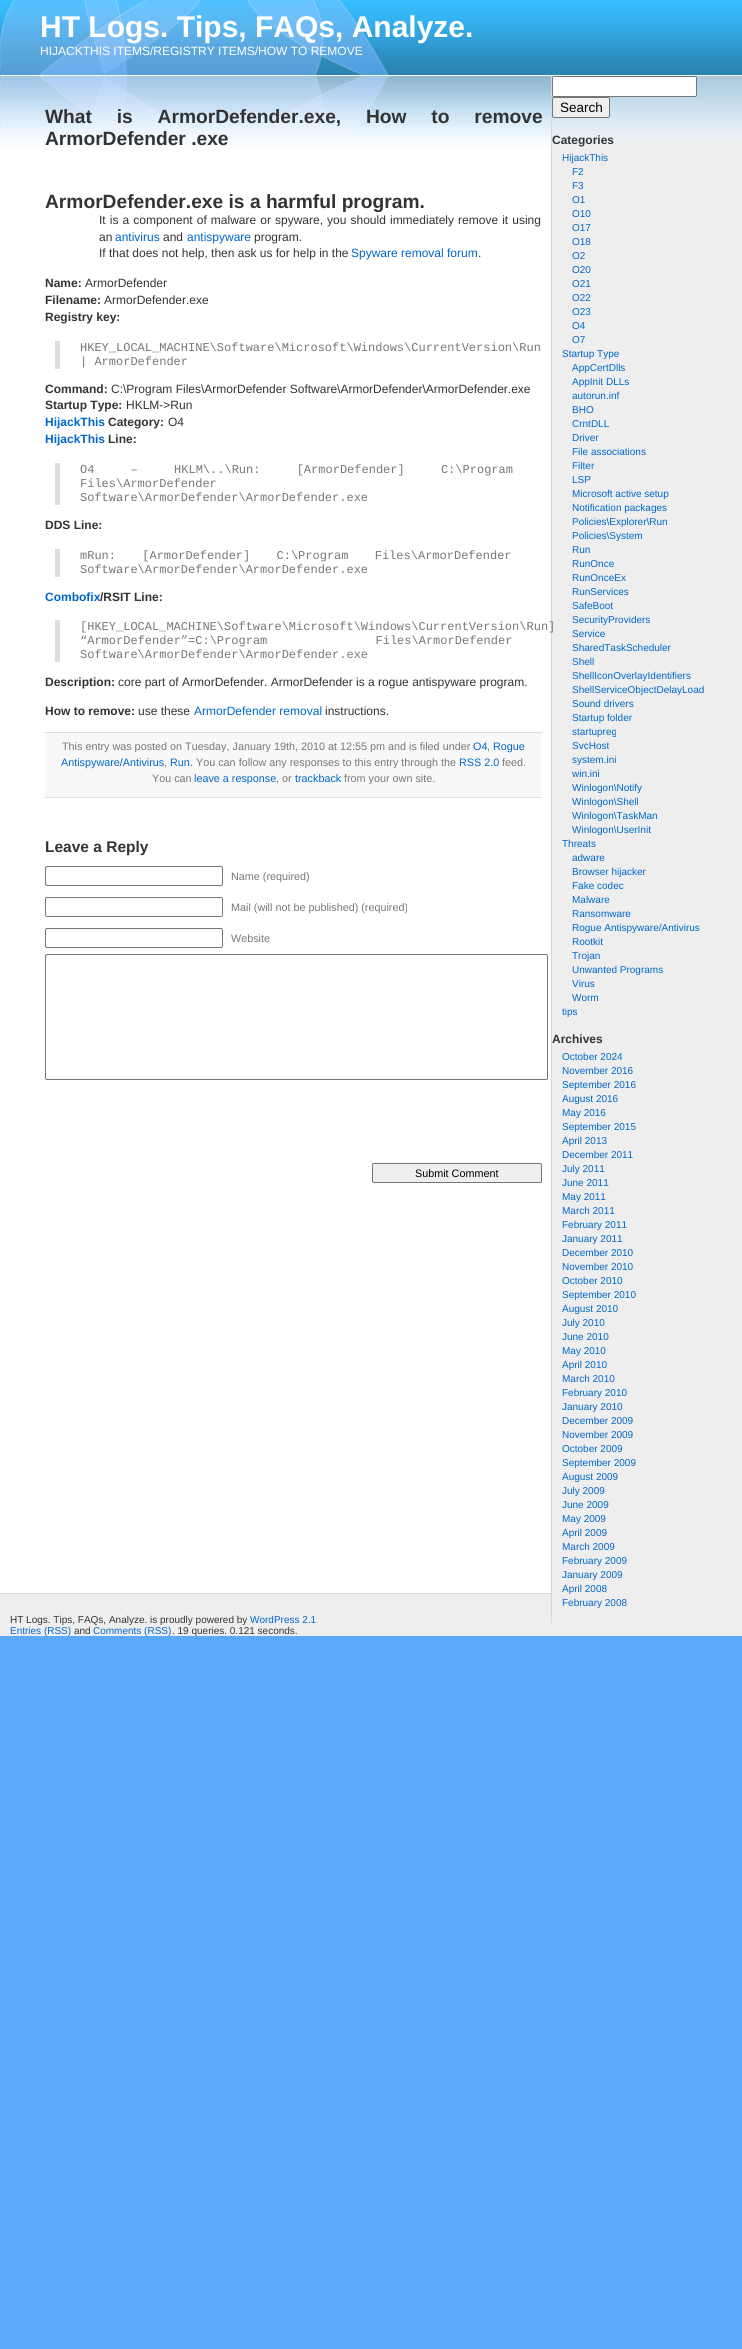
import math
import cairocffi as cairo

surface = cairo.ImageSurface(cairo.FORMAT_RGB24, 742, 2349)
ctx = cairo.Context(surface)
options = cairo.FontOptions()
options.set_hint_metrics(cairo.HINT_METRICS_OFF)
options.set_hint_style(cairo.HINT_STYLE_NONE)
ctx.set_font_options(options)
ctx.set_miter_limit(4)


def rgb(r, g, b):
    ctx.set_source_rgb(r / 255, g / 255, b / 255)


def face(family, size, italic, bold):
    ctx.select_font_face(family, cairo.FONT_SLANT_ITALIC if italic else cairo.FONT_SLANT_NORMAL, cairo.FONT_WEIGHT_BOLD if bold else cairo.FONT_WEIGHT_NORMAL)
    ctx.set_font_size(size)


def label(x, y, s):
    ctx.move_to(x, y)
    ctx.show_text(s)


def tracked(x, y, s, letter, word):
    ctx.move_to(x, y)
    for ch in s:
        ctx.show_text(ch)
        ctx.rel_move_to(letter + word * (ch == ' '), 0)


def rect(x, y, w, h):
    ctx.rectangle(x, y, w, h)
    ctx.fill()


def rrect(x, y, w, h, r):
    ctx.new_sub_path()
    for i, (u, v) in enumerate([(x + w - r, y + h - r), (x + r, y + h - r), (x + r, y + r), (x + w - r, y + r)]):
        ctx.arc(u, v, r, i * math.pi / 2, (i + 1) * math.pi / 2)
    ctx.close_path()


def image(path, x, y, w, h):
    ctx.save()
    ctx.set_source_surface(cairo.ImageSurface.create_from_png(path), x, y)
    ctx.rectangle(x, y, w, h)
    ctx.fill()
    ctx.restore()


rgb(90, 169, 250)
ctx.paint()
rgb(255, 255, 255)
rect(0, 75, 551, 1518)
rgb(241, 242, 241)
rect(551, 75, 191, 1)
image('image0.png', 389, 0, 353, 75)
image('image1.png', 0, 0, 389, 75)
face('Liberation Sans', 30, 0, 1)
rgb(255, 255, 255)
label(40, 37, 'HT Logs. Tips, FAQs, Analyze.')
face('Liberation Sans', 12, 0, 0)
label(40, 55, 'HIJACKTHIS ITEMS/REGISTRY ITEMS/HOW TO REMOVE')
image('image2.png', 0, 76, 551, 75)
image('image3.png', 0, 76, 389, 61)
face('Liberation Sans', 19.2, 0, 1)
rgb(51, 51, 51)
tracked(45, 123, 'What is ArmorDefender.exe, How to remove', 0, 19.5)
label(45, 145, 'ArmorDefender .exe')
label(45, 208, 'ArmorDefender.exe is a harmful program.')
face('Liberation Sans', 12, 0, 0)
tracked(99, 224, 'It is a component of malware or spyware, you should immediately remove it using', 0, 0.75)
label(99, 241, 'an')
rgb(0, 102, 204)
label(115, 241, 'antivirus')
rgb(51, 51, 51)
label(163, 241, 'and')
rgb(0, 102, 204)
label(187, 241, 'antispyware')
rgb(51, 51, 51)
label(254, 241, 'program.')
label(99, 257, 'If that does not help, then ask us for help in the')
rgb(0, 102, 204)
label(351, 257, 'Spyware removal forum')
rgb(51, 51, 51)
label(478, 257, '.')
face('Liberation Sans', 12, 0, 1)
label(45, 287, 'Name:')
face('Liberation Sans', 12, 0, 0)
label(85, 287, 'ArmorDefender')
face('Liberation Sans', 12, 0, 1)
label(45, 304, 'Filename:')
face('Liberation Sans', 12, 0, 0)
label(104, 304, 'ArmorDefender.exe')
face('Liberation Sans', 12, 0, 1)
label(45, 321, 'Registry key:')
rgb(221, 221, 221)
rect(55, 341, 5, 28)
face('Liberation Mono', 12, 0, 0)
rgb(119, 119, 119)
label(80, 351, 'HKEY_LOCAL_MACHINE\\Software\\Microsoft\\Windows\\CurrentVersion\\Run')
label(80, 365, '| ArmorDefender')
face('Liberation Sans', 12, 0, 1)
rgb(51, 51, 51)
label(45, 393, 'Command:')
face('Liberation Sans', 12, 0, 0)
label(111, 393, 'C:\\Program Files\\ArmorDefender Software\\ArmorDefender\\ArmorDefender.exe')
face('Liberation Sans', 12, 0, 1)
label(45, 409, 'Startup Type:')
face('Liberation Sans', 12, 0, 0)
label(126, 409, 'HKLM->Run')
face('Liberation Sans', 12, 0, 1)
rgb(0, 102, 204)
label(45, 426, 'HijackThis')
rgb(51, 51, 51)
label(108, 426, 'Category:')
face('Liberation Sans', 12, 0, 0)
label(168, 426, 'O4')
face('Liberation Sans', 12, 0, 1)
rgb(0, 102, 204)
label(45, 443, 'HijackThis')
rgb(51, 51, 51)
label(108, 443, 'Line:')
rgb(221, 221, 221)
rect(55, 463, 5, 42)
face('Liberation Mono', 12, 0, 0)
rgb(119, 119, 119)
tracked(80, 473, 'O4 – HKLM\\..\\Run: [ArmorDefender] C:\\Program', 0, 29)
label(80, 487, 'Files\\ArmorDefender')
label(80, 501, 'Software\\ArmorDefender\\ArmorDefender.exe')
face('Liberation Sans', 12, 0, 1)
rgb(51, 51, 51)
label(45, 529, 'DDS Line:')
rgb(221, 221, 221)
rect(55, 549, 5, 28)
face('Liberation Mono', 12, 0, 0)
rgb(119, 119, 119)
tracked(80, 559, 'mRun: [ArmorDefender] C:\\Program Files\\ArmorDefender', 0, 19)
label(80, 573, 'Software\\ArmorDefender\\ArmorDefender.exe')
face('Liberation Sans', 12, 0, 1)
rgb(0, 102, 204)
label(45, 601, 'Combofix')
rgb(51, 51, 51)
label(100, 601, '/RSIT Line:')
rgb(221, 221, 221)
rect(55, 620, 5, 42)
rgb(238, 238, 238)
rect(552, 142, 190, 1452)
rect(0, 1594, 742, 42)
rgb(214, 214, 214)
rect(551, 76, 1, 1547)
face('Liberation Mono', 12, 0, 0)
rgb(119, 119, 119)
label(80, 630, '[HKEY_LOCAL_MACHINE\\Software\\Microsoft\\Windows\\CurrentVersion\\Run]')
tracked(80, 644, '“ArmorDefender”=C:\\Program Files\\ArmorDefender', 0, 101)
label(80, 658, 'Software\\ArmorDefender\\ArmorDefender.exe')
face('Liberation Sans', 12, 0, 1)
rgb(51, 51, 51)
label(45, 686, 'Description:')
face('Liberation Sans', 12, 0, 0)
label(118, 686, 'core part of ArmorDefender. ArmorDefender is a rogue antispyware program.')
face('Liberation Sans', 12, 0, 1)
label(45, 715, 'How to remove:')
face('Liberation Sans', 12, 0, 0)
label(138, 715, 'use these')
rgb(0, 102, 204)
label(194, 715, 'ArmorDefender removal')
rgb(51, 51, 51)
label(325, 715, 'instructions.')
rgb(248, 248, 248)
rect(45, 733, 497, 64)
rgb(221, 221, 221)
rect(45, 732, 497, 1)
rect(45, 797, 497, 1)
face('Liberation Sans', 10.8, 0, 0)
rgb(119, 119, 119)
label(62, 750, 'This entry was posted on Tuesday, January 19th, 2010 at 12:55 pm and is filed under')
rgb(0, 102, 204)
label(473, 750, 'O4')
rgb(119, 119, 119)
label(487, 750, ',')
rgb(0, 102, 204)
label(493, 750, 'Rogue')
label(61, 766, 'Antispyware/Antivirus')
rgb(119, 119, 119)
label(164, 766, ',')
rgb(0, 102, 204)
label(170, 766, 'Run')
rgb(119, 119, 119)
label(190, 766, '. You can follow any responses to this entry through the')
rgb(0, 102, 204)
label(459, 766, 'RSS 2.0')
rgb(119, 119, 119)
label(502, 766, 'feed.')
label(152, 782, 'You can')
rgb(0, 102, 204)
label(194, 782, 'leave a response')
rgb(119, 119, 119)
label(276, 782, ', or')
rgb(0, 102, 204)
label(295, 782, 'trackback')
rgb(119, 119, 119)
label(344, 782, 'from your own site.')
face('Liberation Sans', 15.5, 0, 1)
rgb(51, 51, 51)
label(45, 852, 'Leave a Reply')
rrect(45.5, 866.5, 177, 19, 1.5)
rgb(118, 118, 118)
ctx.set_line_width(1)
ctx.stroke()
face('Liberation Sans', 10.8, 0, 0)
rgb(119, 119, 119)
label(231, 880, 'Name (required)')
rrect(45.5, 897.5, 177, 19, 1.5)
rgb(118, 118, 118)
ctx.stroke()
rgb(119, 119, 119)
label(231, 911, 'Mail (will not be published) (required)')
rrect(45.5, 928.5, 177, 19, 1.5)
rgb(118, 118, 118)
ctx.stroke()
rgb(119, 119, 119)
label(231, 942, 'Website')
rrect(45.5, 954.5, 502, 125, 1.5)
rgb(118, 118, 118)
ctx.stroke()
rgb(239, 239, 239)
rrect(372.5, 1163.5, 169, 19, 1.5)
ctx.fill_preserve()
rgb(118, 118, 118)
ctx.stroke()
rgb(0, 0, 0)
label(415, 1177, 'Submit Comment')
image('image4.png', 552, 76, 190, 66)
rgb(255, 255, 255)
rrect(552.5, 76.5, 144, 20, 1.5)
ctx.fill_preserve()
rgb(118, 118, 118)
ctx.stroke()
rgb(239, 239, 239)
rrect(552.5, 97.5, 57, 20, 1.5)
ctx.fill_preserve()
rgb(118, 118, 118)
ctx.stroke()
face('Liberation Sans', 13.5, 0, 0)
rgb(0, 0, 0)
label(560, 112, 'Search')
face('Liberation Sans', 12, 0, 1)
rgb(51, 51, 51)
label(552, 144, 'Categories')
face('Liberation Sans', 10, 0, 0)
rgb(0, 102, 204)
label(562, 161, 'HijackThis')
label(572, 175, 'F2')
label(572, 189, 'F3')
label(572, 203, 'O1')
label(572, 217, 'O10')
label(572, 231, 'O17')
label(572, 245, 'O18')
label(572, 259, 'O2')
label(572, 273, 'O20')
label(572, 287, 'O21')
label(572, 301, 'O22')
label(572, 315, 'O23')
label(572, 329, 'O4')
label(572, 343, 'O7')
label(562, 357, 'Startup Type')
label(572, 371, 'AppCertDlls')
label(572, 385, 'AppInit DLLs')
label(572, 399, 'autorun.inf')
label(572, 413, 'BHO')
label(572, 427, 'CrntDLL')
label(572, 441, 'Driver')
label(572, 455, 'File associations')
label(572, 469, 'Filter')
label(572, 483, 'LSP')
label(572, 497, 'Microsoft active setup')
label(572, 511, 'Notification packages')
label(572, 525, 'Policies\\Explorer\\Run')
label(572, 539, 'Policies\\System')
label(572, 553, 'Run')
label(572, 567, 'RunOnce')
label(572, 581, 'RunOnceEx')
label(572, 595, 'RunServices')
label(572, 609, 'SafeBoot')
label(572, 623, 'SecurityProviders')
label(572, 637, 'Service')
label(572, 651, 'SharedTaskScheduler')
label(572, 665, 'Shell')
label(572, 679, 'ShellIconOverlayIdentifiers')
label(572, 693, 'ShellServiceObjectDelayLoad')
label(572, 707, 'Sound drivers')
label(572, 721, 'Startup folder')
label(572, 735, 'startupreg')
label(572, 749, 'SvcHost')
label(572, 763, 'system.ini')
label(572, 777, 'win.ini')
label(572, 791, 'Winlogon\\Notify')
label(572, 805, 'Winlogon\\Shell')
label(572, 819, 'Winlogon\\TaskMan')
label(572, 833, 'Winlogon\\UserInit')
label(562, 847, 'Threats')
label(572, 861, 'adware')
label(572, 875, 'Browser hijacker')
label(572, 889, 'Fake codec')
label(572, 903, 'Malware')
label(572, 917, 'Ransomware')
label(572, 931, 'Rogue Antispyware/Antivirus')
label(572, 945, 'Rootkit')
label(572, 959, 'Trojan')
label(572, 973, 'Unwanted Programs')
label(572, 987, 'Virus')
label(572, 1001, 'Worm')
label(562, 1015, 'tips')
face('Liberation Sans', 12, 0, 1)
rgb(51, 51, 51)
label(552, 1043, 'Archives')
face('Liberation Sans', 10, 0, 0)
rgb(0, 102, 204)
label(562, 1060, 'October 2024')
label(562, 1074, 'November 2016')
label(562, 1088, 'September 2016')
label(562, 1102, 'August 2016')
label(562, 1116, 'May 2016')
label(562, 1130, 'September 2015')
label(562, 1144, 'April 2013')
label(562, 1158, 'December 2011')
label(562, 1172, 'July 2011')
label(562, 1186, 'June 2011')
label(562, 1200, 'May 2011')
label(562, 1214, 'March 2011')
label(562, 1228, 'February 2011')
label(562, 1242, 'January 2011')
label(562, 1256, 'December 2010')
label(562, 1270, 'November 2010')
label(562, 1284, 'October 2010')
label(562, 1298, 'September 2010')
label(562, 1312, 'August 2010')
label(562, 1326, 'July 2010')
label(562, 1340, 'June 2010')
label(562, 1354, 'May 2010')
label(562, 1368, 'April 2010')
label(562, 1382, 'March 2010')
label(562, 1396, 'February 2010')
label(562, 1410, 'January 2010')
label(562, 1424, 'December 2009')
label(562, 1438, 'November 2009')
label(562, 1452, 'October 2009')
label(562, 1466, 'September 2009')
label(562, 1480, 'August 2009')
label(562, 1494, 'July 2009')
label(562, 1508, 'June 2009')
label(562, 1522, 'May 2009')
label(562, 1536, 'April 2009')
label(562, 1550, 'March 2009')
label(562, 1564, 'February 2009')
label(562, 1578, 'January 2009')
label(562, 1592, 'April 2008')
label(562, 1606, 'February 2008')
rgb(214, 214, 214)
rect(0, 1593, 551, 1)
rgb(51, 51, 51)
label(10, 1623, 'HT Logs. Tips, FAQs, Analyze. is proudly powered by')
rgb(0, 102, 204)
label(250, 1623, 'WordPress 2.1')
label(10, 1634, 'Entries (RSS)')
rgb(51, 51, 51)
label(74, 1634, 'and')
rgb(0, 102, 204)
label(93, 1634, 'Comments (RSS)')
rgb(51, 51, 51)
label(172, 1634, '. 19 queries. 0.121 seconds.')
surface.write_to_png('render.png')
